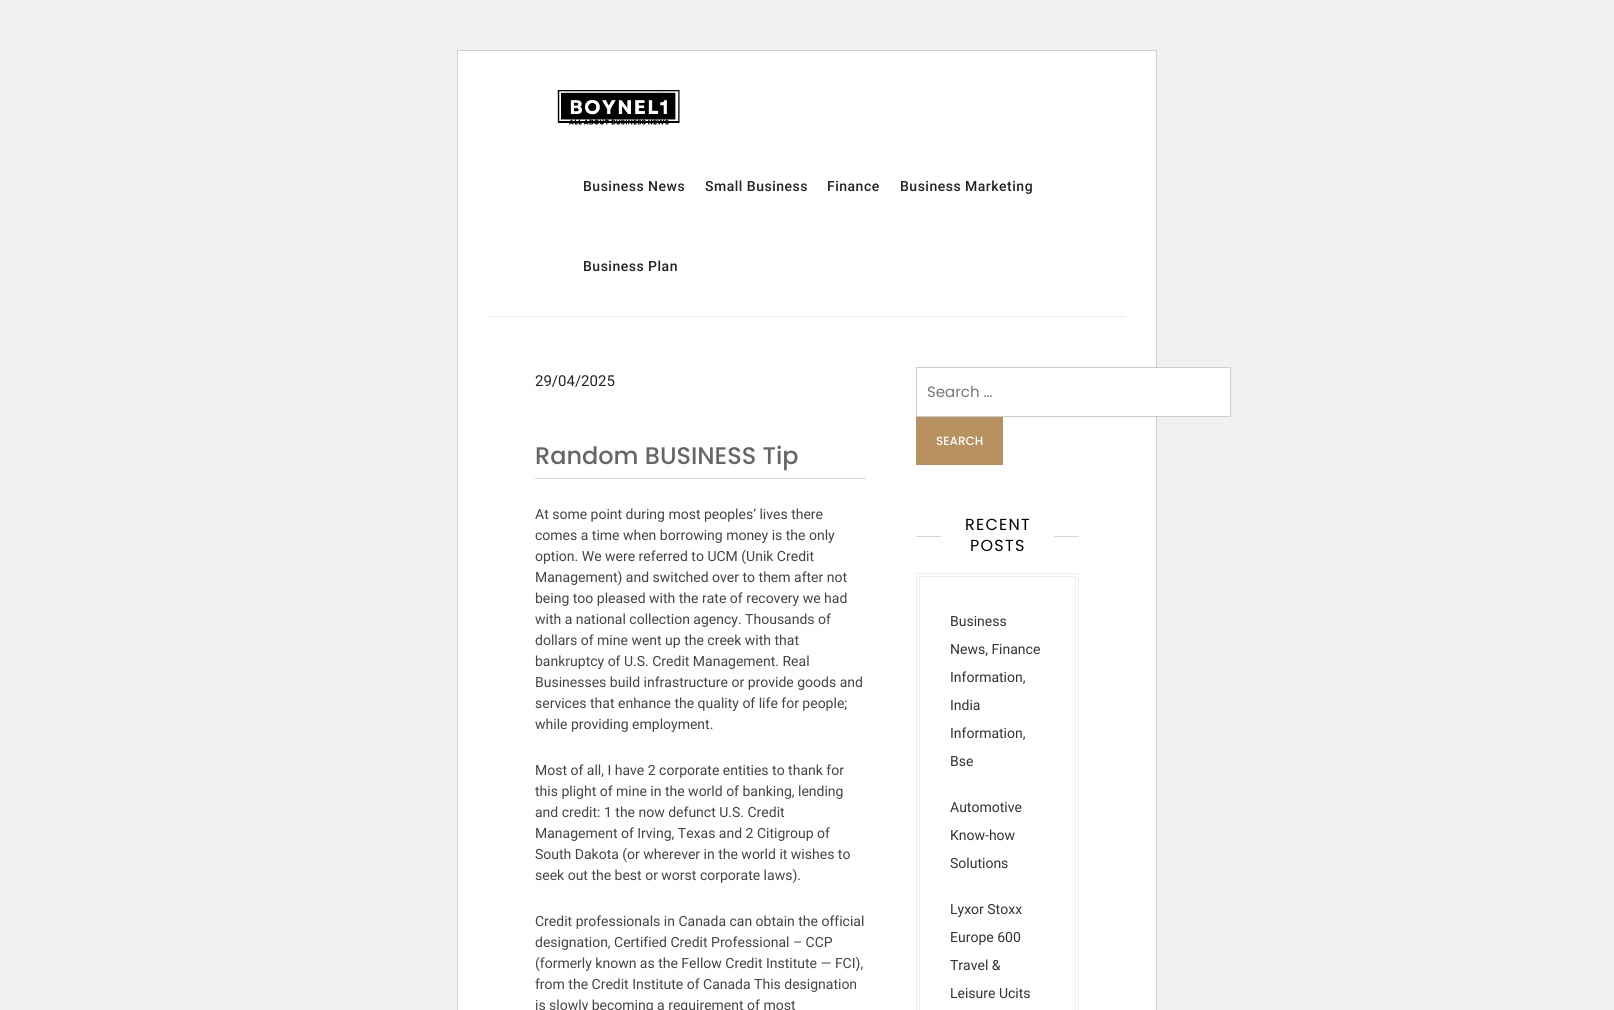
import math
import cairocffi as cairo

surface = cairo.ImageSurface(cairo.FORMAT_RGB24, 1614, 1010)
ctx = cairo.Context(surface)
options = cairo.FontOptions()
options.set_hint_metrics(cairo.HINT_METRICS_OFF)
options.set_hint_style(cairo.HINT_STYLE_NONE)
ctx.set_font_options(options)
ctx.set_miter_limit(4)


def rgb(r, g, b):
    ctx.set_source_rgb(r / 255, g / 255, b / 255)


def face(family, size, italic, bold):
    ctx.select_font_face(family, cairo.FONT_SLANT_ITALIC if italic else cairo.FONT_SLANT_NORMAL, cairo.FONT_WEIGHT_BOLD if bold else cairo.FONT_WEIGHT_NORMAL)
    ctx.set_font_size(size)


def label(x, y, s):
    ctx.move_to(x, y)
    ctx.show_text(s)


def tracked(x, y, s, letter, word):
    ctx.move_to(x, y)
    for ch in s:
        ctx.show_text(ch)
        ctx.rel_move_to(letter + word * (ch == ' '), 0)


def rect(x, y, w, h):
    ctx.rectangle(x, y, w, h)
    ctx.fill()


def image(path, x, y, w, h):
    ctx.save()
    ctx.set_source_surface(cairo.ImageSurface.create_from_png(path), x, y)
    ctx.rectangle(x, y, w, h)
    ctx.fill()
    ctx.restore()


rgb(241, 241, 241)
ctx.paint()
rgb(255, 255, 255)
ctx.rectangle(457.5, 50.5, 699, 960)
ctx.fill_preserve()
rgb(204, 208, 212)
ctx.set_line_width(1)
ctx.stroke()
rgb(236, 236, 236)
rect(488, 316, 638, 1)
image('image0.png', 557, 90, 123, 35)
face('Roboto Medium', 14, 0, 0)
rgb(35, 35, 35)
tracked(583, 191, 'Business News', 0.5, 0)
tracked(705, 191, 'Small Business', 0.5, 0)
tracked(827, 191, 'Finance', 0.5, 0)
tracked(900, 191, 'Business Marketing', 0.5, 0)
tracked(583, 271, 'Business Plan', 0.5, 0)
face('Roboto', 15, 0, 0)
label(535, 386, '29/04/2025')
rgb(218, 218, 218)
rect(535, 478, 331, 1)
face('Poppins Medium', 24, 0, 0)
rgb(102, 102, 102)
label(535, 464, 'Random BUSINESS Tip')
face('Roboto', 14, 0, 0)
rgb(68, 68, 68)
label(535, 519, 'At some point during most peoples’ lives there')
label(535, 540, 'comes a time when borrowing money is the only')
label(535, 561, 'option. We were referred to UCM (Unik Credit')
label(535, 582, 'Management) and switched over to them after not')
label(535, 603, 'being too pleased with the rate of recovery we had')
label(535, 624, 'with a national collection agency. Thousands of')
label(535, 645, 'dollars of mine went up the creek with that')
label(535, 666, 'bankruptcy of U.S. Credit Management. Real')
label(535, 687, 'Businesses build infrastructure or provide goods and')
label(535, 708, 'services that enhance the quality of life for people;')
label(535, 729, 'while providing employment.')
label(535, 775, 'Most of all, I have 2 corporate entities to thank for')
label(535, 796, 'this plight of mine in the world of banking, lending')
label(535, 817, 'and credit: 1 the now defunct U.S. Credit')
label(535, 838, 'Management of Irving, Texas and 2 Citigroup of')
label(535, 859, 'South Dakota (or wherever in the world it wishes to')
label(535, 880, 'seek out the best or worst corporate laws).')
label(535, 926, 'Credit professionals in Canada can obtain the official')
label(535, 947, 'designation, Certified Credit Professional – CCP')
label(535, 968, '(formerly known as the Fellow Credit Institute — FCI),')
label(535, 989, 'from the Credit Institute of Canada This designation')
label(535, 1010, 'is slowly becoming a requirement of most')
rgb(255, 255, 255)
rect(1156, 368, 74, 48)
ctx.rectangle(916.5, 367.5, 314, 49)
rgb(204, 204, 204)
ctx.stroke()
face('Poppins', 15, 0, 0)
rgb(117, 117, 117)
label(927, 397, 'Search …')
rgb(184, 145, 97)
rect(916, 417, 87, 48)
face('Poppins Medium', 12, 0, 0)
rgb(255, 255, 255)
label(936, 445, 'SEARCH')
face('Poppins', 16, 0, 0)
rgb(0, 0, 0)
tracked(965, 530, 'RECENT', 1.25, 0)
rgb(214, 214, 214)
rect(916, 536, 25, 1)
rect(1054, 536, 25, 1)
rgb(0, 0, 0)
tracked(970, 551, 'POSTS', 1.25, 0)
ctx.rectangle(916.5, 573.5, 162, 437)
rgb(238, 238, 238)
ctx.stroke()
ctx.rectangle(919.5, 576.5, 156, 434)
ctx.stroke()
face('Roboto', 14, 0, 0)
rgb(51, 51, 51)
label(950, 626, 'Business')
label(950, 654, 'News, Finance')
label(950, 682, 'Information,')
label(950, 710, 'India')
label(950, 738, 'Information,')
label(950, 766, 'Bse')
label(950, 812, 'Automotive')
label(950, 840, 'Know-how')
label(950, 868, 'Solutions')
label(950, 914, 'Lyxor Stoxx')
label(950, 942, 'Europe 600')
label(950, 970, 'Travel &')
label(950, 998, 'Leisure Ucits')
surface.write_to_png('render.png')
